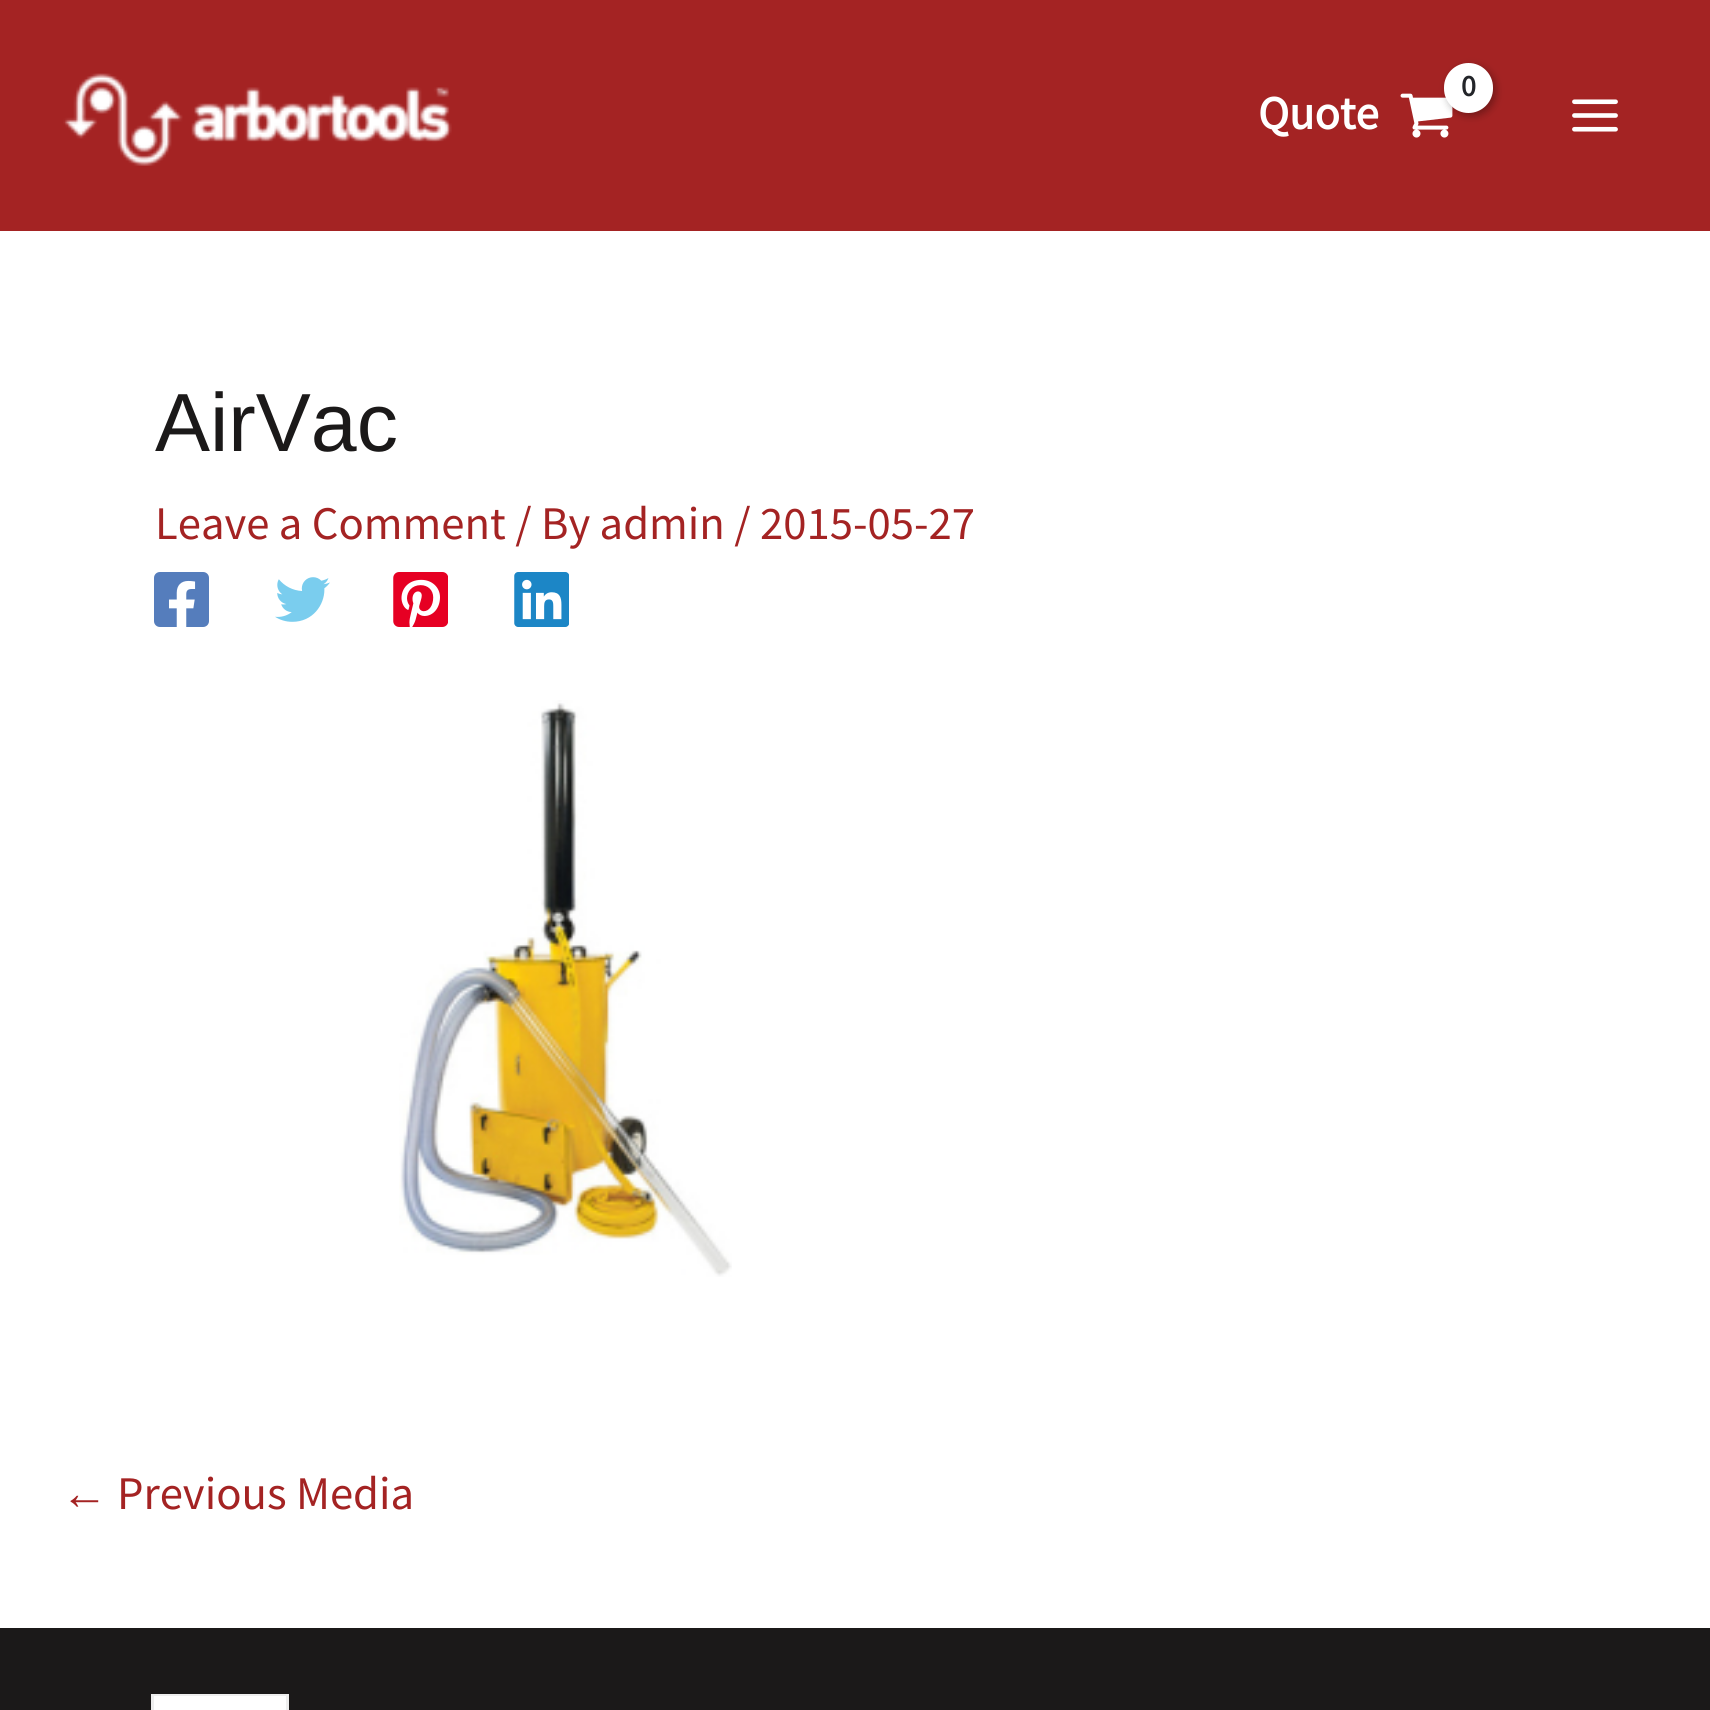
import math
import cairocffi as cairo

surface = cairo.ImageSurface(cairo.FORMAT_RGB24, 1710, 1710)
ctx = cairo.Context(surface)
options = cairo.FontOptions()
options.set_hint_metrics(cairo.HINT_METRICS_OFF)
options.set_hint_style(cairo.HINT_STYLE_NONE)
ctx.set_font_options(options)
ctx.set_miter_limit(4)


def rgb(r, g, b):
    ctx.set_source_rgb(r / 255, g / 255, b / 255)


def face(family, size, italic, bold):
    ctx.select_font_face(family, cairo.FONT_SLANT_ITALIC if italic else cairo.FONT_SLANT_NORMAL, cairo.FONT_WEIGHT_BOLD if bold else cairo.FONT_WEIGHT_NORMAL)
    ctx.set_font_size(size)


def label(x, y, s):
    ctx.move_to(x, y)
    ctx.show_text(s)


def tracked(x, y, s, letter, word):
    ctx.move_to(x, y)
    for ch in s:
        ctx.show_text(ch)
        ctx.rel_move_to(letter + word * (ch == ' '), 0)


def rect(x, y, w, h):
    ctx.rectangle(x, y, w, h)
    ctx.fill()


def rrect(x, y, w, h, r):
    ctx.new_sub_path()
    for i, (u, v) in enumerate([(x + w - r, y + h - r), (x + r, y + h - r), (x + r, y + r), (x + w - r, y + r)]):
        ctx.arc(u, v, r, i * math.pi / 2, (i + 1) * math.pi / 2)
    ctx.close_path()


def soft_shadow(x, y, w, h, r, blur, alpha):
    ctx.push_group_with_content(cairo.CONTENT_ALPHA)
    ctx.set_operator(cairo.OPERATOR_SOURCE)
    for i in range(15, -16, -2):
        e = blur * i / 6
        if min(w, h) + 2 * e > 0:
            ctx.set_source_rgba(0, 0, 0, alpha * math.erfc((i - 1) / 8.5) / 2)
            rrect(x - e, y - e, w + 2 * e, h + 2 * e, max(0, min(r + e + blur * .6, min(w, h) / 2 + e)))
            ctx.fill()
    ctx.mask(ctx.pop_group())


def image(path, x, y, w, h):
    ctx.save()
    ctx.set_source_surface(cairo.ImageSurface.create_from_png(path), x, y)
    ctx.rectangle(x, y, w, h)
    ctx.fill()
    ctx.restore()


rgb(255, 255, 255)
ctx.paint()
rgb(164, 35, 35)
rect(0, 0, 1710, 231)
image('image0.png', 63, 73, 389, 93)
image('image1.png', 1400, 93, 53, 45)
rgb(0, 0, 0)
soft_shadow(1447, 66, 49, 50, 24.5, 4, 0.3)
rgb(255, 255, 255)
rrect(1444, 63, 49, 50, 24.5)
ctx.fill()
face('Source Sans Pro', 30, 0, 1)
rgb(35, 37, 41)
tracked(1461, 96, '0', -1, 0)
face('Source Sans Pro', 46.75, 0, 1)
rgb(255, 255, 255)
label(1258, 129, 'Quote')
image('image2.png', 1572, 99, 46, 33)
face('Liberation Sans', 82.5, 0, 0)
rgb(27, 25, 25)
label(155, 451, 'AirVac')
face('Source Sans Pro', 46.75, 0, 0)
rgb(164, 35, 35)
label(155, 539, 'Leave a Comment / By admin / 2015-05-27')
image('image3.png', 154, 572, 55, 55)
image('image4.png', 275, 577, 55, 45)
image('image5.png', 393, 572, 55, 55)
image('image6.png', 514, 572, 55, 55)
image('image7.png', 399, 700, 333, 577)
face('Liberation Sans', 46.75, 0, 0)
label(61, 1509, '←')
face('Source Sans Pro', 46.75, 0, 0)
label(117, 1509, 'Previous Media')
rgb(27, 25, 25)
rect(0, 1628, 1710, 82)
ctx.rectangle(152.5, 1695.5, 135, 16)
rgb(238, 238, 238)
ctx.set_line_width(3)
ctx.stroke()
rgb(255, 255, 255)
rect(154, 1696, 132, 14)
surface.write_to_png('render.png')
